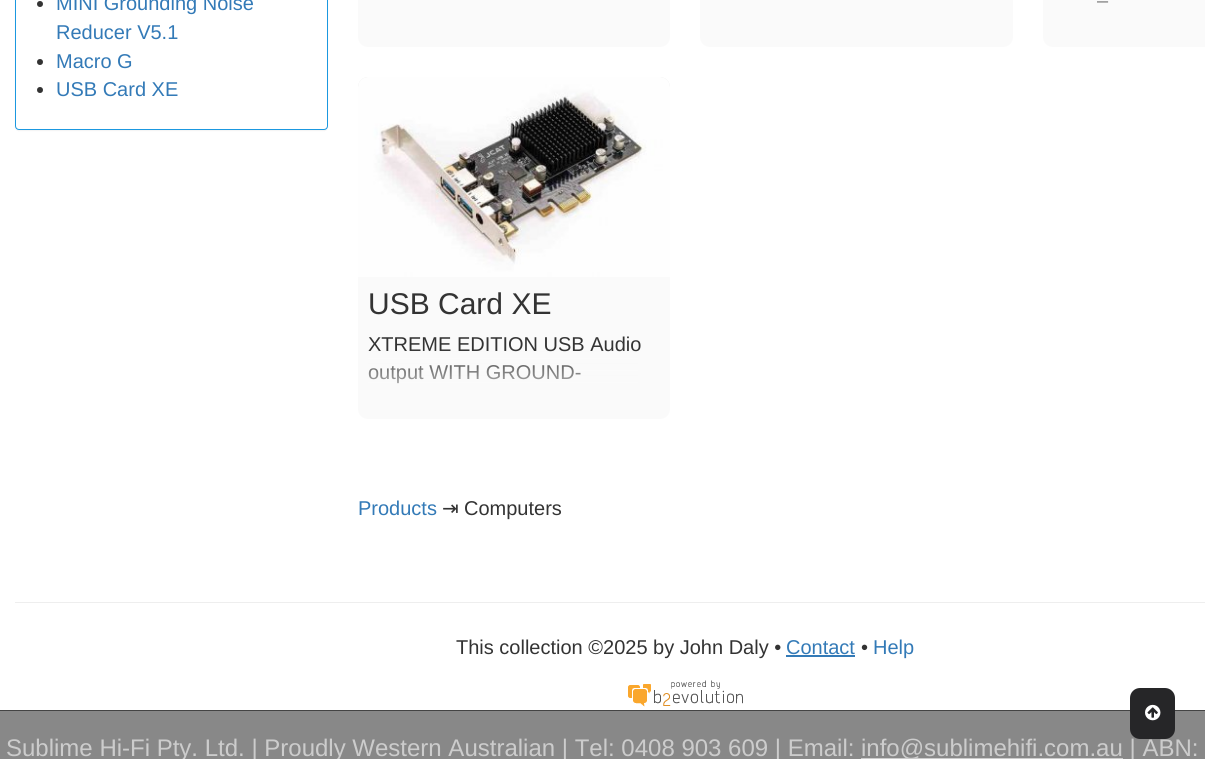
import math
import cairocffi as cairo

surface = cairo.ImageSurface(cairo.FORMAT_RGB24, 1205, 759)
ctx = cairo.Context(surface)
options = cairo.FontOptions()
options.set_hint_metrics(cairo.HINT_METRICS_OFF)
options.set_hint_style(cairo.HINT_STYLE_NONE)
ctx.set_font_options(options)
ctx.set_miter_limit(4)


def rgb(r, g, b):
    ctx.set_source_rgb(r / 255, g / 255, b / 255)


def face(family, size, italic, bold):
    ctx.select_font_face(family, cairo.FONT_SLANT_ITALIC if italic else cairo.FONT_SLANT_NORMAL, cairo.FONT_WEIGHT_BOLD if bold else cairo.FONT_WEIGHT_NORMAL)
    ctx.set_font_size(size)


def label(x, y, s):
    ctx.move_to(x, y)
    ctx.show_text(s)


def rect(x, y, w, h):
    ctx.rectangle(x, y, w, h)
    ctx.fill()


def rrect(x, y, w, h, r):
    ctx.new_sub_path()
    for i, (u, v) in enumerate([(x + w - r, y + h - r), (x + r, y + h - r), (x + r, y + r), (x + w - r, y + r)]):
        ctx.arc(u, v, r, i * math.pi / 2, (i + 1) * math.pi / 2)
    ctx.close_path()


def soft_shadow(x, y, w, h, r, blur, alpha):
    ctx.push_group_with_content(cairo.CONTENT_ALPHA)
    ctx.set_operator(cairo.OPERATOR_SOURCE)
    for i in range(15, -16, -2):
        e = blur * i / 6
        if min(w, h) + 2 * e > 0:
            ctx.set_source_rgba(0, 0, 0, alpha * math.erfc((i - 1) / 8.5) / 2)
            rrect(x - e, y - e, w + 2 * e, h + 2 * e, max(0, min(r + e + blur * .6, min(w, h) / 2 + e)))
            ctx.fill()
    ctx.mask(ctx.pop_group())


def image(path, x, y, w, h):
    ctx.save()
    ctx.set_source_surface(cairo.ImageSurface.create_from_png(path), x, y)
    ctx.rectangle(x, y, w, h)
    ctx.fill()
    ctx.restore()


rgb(255, 255, 255)
ctx.paint()
rgb(0, 0, 0)
soft_shadow(15, -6, 313, 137, 4, 0.5, 0.05)
rgb(255, 255, 255)
rrect(15.5, -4.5, 312, 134, 3.5)
ctx.fill_preserve()
rgb(27, 152, 224)
ctx.set_line_width(1)
ctx.stroke()
rgb(51, 51, 51)
ctx.arc(40, 4, 3, 0, 2 * math.pi)
ctx.fill()
face('Liberation Sans', 20, 0, 0)
rgb(51, 122, 183)
label(56, 10, 'MINI Grounding Noise')
label(56, 39, 'Reducer V5.1')
rgb(51, 51, 51)
ctx.new_path()
ctx.arc(40, 62, 3, 0, 2 * math.pi)
ctx.fill()
rgb(51, 122, 183)
label(56, 68, 'Macro G')
rgb(51, 51, 51)
ctx.new_path()
ctx.arc(40, 90, 3, 0, 2 * math.pi)
ctx.fill()
rgb(51, 122, 183)
label(56, 96, 'USB Card XE')
rgb(250, 250, 250)
rrect(358, -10, 312, 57, 10)
ctx.fill()
rrect(700, -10, 313, 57, 10)
ctx.fill()
rrect(1043, -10, 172, 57, 10)
ctx.fill()
rgb(51, 51, 51)
label(1097, 7, '–')
gradient = cairo.LinearGradient(1199, -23, 1199, 37)
gradient.add_color_stop_rgba(0, 0.98, 0.98, 0.98, 0)
gradient.add_color_stop_rgba(1, 0.98, 0.98, 0.98, 1)
ctx.set_source(gradient)
rect(1097, 1, 12, 2)
rgb(250, 250, 250)
rrect(358, 77, 312, 342, 10)
ctx.fill()
rgb(240, 240, 240)
ctx.new_path()
ctx.move_to(368, 77)
ctx.line_to(660, 77)
ctx.curve_to(665.5, 77, 670, 81.5, 670, 87)
ctx.line_to(670, 277)
ctx.line_to(358, 277)
ctx.line_to(358, 87)
ctx.curve_to(358, 81.5, 362.5, 77, 368, 77)
ctx.close_path()
ctx.fill()
image('image0.png', 358, 77, 312, 200)
face('Liberation Sans', 30, 0, 0)
rgb(51, 51, 51)
label(368, 314, 'USB Card XE')
face('Liberation Sans', 20, 0, 0)
label(368, 351, 'XTREME EDITION USB Audio')
label(368, 379, 'output WITH GROUND-')
gradient = cairo.LinearGradient(514, 349, 514, 409)
gradient.add_color_stop_rgba(0, 0.98, 0.98, 0.98, 0)
gradient.add_color_stop_rgba(1, 0.98, 0.98, 0.98, 1)
ctx.set_source(gradient)
rect(368, 350, 270, 34)
rgb(51, 122, 183)
label(358, 515, 'Products')
face('DejaVu Sans', 20, 0, 0)
rgb(51, 51, 51)
label(442, 515, '⇥')
face('Liberation Sans', 20, 0, 0)
label(464, 515, 'Computers')
rgb(238, 238, 238)
rect(15, 602, 1190, 1)
rgb(51, 51, 51)
label(456, 654, 'This collection ©2025 by John Daly •')
rgb(51, 122, 183)
label(786, 654, 'Contact')
rect(786, 655, 69, 2)
rgb(51, 51, 51)
label(861, 654, '•')
rgb(51, 122, 183)
label(873, 654, 'Help')
image('image1.png', 628, 680, 115, 27)
rgb(136, 136, 136)
rect(0, 711, 1205, 48)
rgb(68, 68, 68)
rect(0, 710, 1205, 1)
rgb(204, 204, 204)
rect(861, 758, 262, 1)
face('Liberation Sans', 24, 0, 0)
label(861, 756, 'info@sublimehifi.com.au | ABN:')
rgb(38, 38, 40)
rrect(1130, 688, 45, 51, 10)
ctx.fill()
image('image2.png', 1145, 704, 16, 17)
rgb(204, 204, 204)
label(6, 756, 'Sublime Hi-Fi Pty. Ltd. | Proudly Western Australian | Tel: 0408 903 609 | Email:')
surface.write_to_png('render.png')
